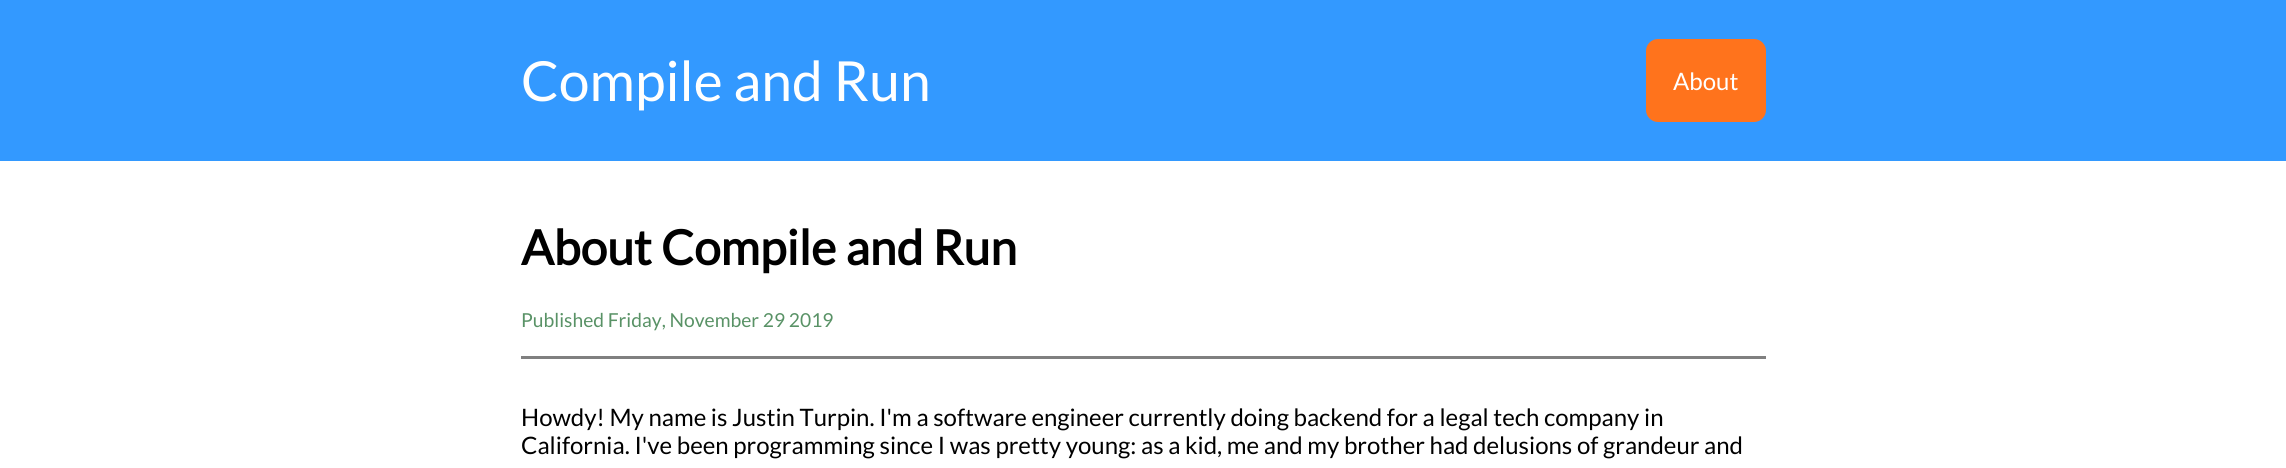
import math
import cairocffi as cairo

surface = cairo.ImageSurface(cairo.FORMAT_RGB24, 2286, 468)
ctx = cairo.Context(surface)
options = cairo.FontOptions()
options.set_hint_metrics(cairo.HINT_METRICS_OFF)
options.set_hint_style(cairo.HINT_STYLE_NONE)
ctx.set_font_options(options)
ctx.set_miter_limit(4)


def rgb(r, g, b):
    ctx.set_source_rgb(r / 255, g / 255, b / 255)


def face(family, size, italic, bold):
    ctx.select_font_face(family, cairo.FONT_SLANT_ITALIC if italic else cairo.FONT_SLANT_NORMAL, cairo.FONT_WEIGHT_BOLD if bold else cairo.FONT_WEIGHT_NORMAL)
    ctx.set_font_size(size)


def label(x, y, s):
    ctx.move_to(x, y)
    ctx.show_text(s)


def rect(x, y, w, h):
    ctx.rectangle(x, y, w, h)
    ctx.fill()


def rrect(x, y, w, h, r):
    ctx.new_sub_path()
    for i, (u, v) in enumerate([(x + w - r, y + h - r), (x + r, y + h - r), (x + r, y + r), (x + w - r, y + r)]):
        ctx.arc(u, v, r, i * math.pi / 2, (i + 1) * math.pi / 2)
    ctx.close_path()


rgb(255, 255, 255)
ctx.paint()
rgb(51, 153, 255)
rect(0, 0, 2286, 161)
face('Lato', 55.25, 0, 0)
rgb(255, 255, 255)
label(521, 101, 'Compile and Run')
rgb(255, 115, 28)
rrect(1646, 39, 120, 83, 12)
ctx.fill()
face('Lato', 24, 0, 0)
rgb(255, 255, 255)
label(1673, 90, 'About')
rgb(128, 128, 128)
rect(521, 356, 1245, 3)
face('Lato', 48, 0, 1)
rgb(0, 0, 0)
label(521, 265, 'About Compile and Run')
face('Lato', 19.25, 0, 0)
rgb(89, 146, 102)
label(521, 327, 'Published Friday, November 29 2019')
face('Lato', 24, 0, 0)
rgb(0, 0, 0)
label(521, 426, 'Howdy! My name is Justin Turpin. I\'m a software engineer currently doing backend for a legal tech company in')
label(521, 454, 'California. I\'ve been programming since I was pretty young: as a kid, me and my brother had delusions of grandeur and')
surface.write_to_png('render.png')
